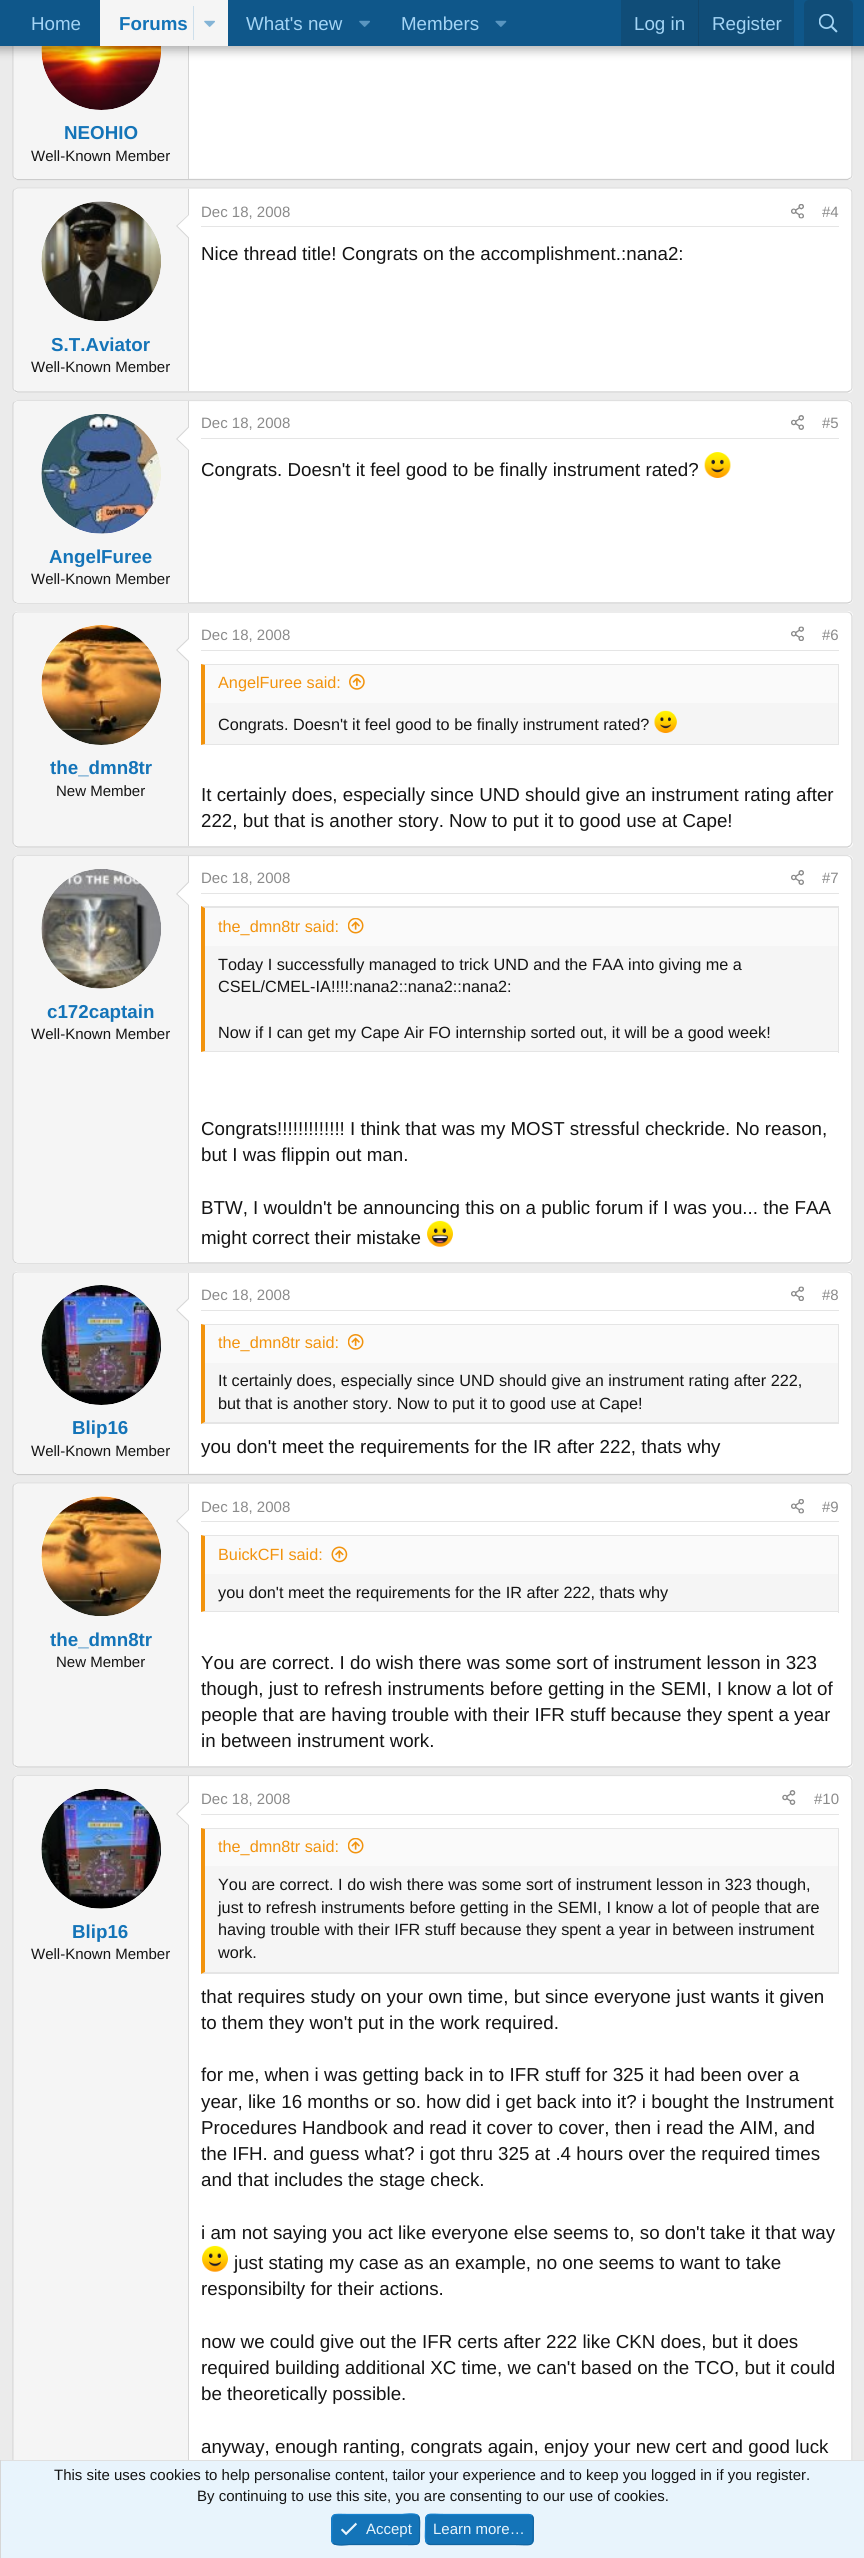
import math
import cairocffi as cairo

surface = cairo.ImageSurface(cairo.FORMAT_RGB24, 864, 2558)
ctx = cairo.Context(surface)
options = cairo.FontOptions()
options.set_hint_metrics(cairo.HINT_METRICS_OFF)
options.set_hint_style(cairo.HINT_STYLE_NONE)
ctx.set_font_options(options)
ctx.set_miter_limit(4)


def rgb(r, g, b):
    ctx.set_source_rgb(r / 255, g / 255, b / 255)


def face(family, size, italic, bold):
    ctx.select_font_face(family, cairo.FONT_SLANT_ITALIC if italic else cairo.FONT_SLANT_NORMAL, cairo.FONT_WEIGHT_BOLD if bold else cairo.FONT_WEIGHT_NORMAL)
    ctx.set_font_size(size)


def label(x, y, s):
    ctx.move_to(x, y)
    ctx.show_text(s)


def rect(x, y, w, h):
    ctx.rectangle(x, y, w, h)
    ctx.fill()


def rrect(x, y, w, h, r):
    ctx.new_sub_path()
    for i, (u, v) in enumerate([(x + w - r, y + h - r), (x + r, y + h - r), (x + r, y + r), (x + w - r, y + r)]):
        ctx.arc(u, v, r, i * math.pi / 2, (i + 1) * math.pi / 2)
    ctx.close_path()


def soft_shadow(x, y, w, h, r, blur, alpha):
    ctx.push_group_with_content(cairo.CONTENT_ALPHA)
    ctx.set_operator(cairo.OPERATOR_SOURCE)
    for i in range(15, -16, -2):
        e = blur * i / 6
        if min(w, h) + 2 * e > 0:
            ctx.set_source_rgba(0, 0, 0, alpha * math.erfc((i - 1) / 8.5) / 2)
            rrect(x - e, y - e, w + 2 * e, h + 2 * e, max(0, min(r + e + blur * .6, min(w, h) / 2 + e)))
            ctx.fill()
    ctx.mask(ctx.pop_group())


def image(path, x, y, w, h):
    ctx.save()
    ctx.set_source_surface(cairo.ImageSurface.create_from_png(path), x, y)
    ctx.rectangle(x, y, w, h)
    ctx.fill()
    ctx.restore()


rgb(235, 235, 235)
ctx.paint()
rgb(255, 255, 255)
rrect(13, -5, 840, 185, 5)
ctx.fill()
ctx.new_path()
ctx.move_to(850.5, -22)
ctx.curve_to(851.5, -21, 852, -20, 852, -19)
ctx.line_to(852, 175)
ctx.curve_to(852, 176, 851.5, 177.5, 850.5, 178)
rgb(214, 214, 214)
ctx.set_line_width(1.2)
ctx.stroke()
ctx.new_path()
ctx.move_to(850.5, 178)
ctx.line_to(847.5, 179.5)
ctx.line_to(17.5, 179.5)
ctx.line_to(14.5, 178)
rgb(204, 204, 204)
ctx.stroke()
ctx.new_path()
ctx.move_to(14.5, 178)
ctx.curve_to(13.5, 177.5, 13, 176, 13, 175)
ctx.line_to(13, -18.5)
ctx.curve_to(13, -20, 13.5, -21, 14.5, -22)
rgb(214, 214, 214)
ctx.stroke()
rgb(245, 245, 245)
ctx.new_path()
ctx.move_to(18, -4)
ctx.line_to(189, -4)
ctx.line_to(189, 179)
ctx.line_to(18, 179)
ctx.curve_to(16, 179, 14, 177, 14, 175)
ctx.line_to(14, 0)
ctx.curve_to(14, -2, 16, -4, 18, -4)
ctx.close_path()
ctx.fill()
rgb(214, 214, 214)
rect(188, 46, 1, 133)
rgb(255, 255, 255)
ctx.arc(101, 50, 60, 0, 2 * math.pi)
ctx.fill()
image('image4.png', 41, 46, 120, 64)
rgb(0, 0, 0)
soft_shadow(-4, -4, 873, 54, 0, 5, 0.3)
rgb(15, 87, 138)
rect(0, 0, 864, 46)
face('Liberation Sans', 18.75, 0, 0)
rgb(163, 212, 245)
label(31, 30, 'Home')
rgb(245, 245, 245)
rect(100, 0, 128, 46)
face('Liberation Sans', 18.75, 0, 1)
rgb(20, 116, 184)
label(119, 30, 'Forums')
rgb(206, 223, 235)
rect(193, 6, 1, 34)
image('image0.png', 204, 20, 11, 7)
face('Liberation Sans', 18.75, 0, 0)
rgb(163, 212, 245)
label(246, 30, 'What\'s new')
image('image1.png', 359, 20, 11, 7)
label(401, 30, 'Members')
image('image2.png', 495, 20, 12, 7)
rgb(16, 77, 120)
rect(621, 0, 173, 46)
rgb(163, 212, 245)
label(634, 30, 'Log in')
rgb(17, 68, 105)
rect(698, 0, 1, 46)
rgb(163, 212, 245)
label(712, 30, 'Register')
rgb(16, 77, 120)
ctx.new_path()
ctx.move_to(809, 0)
ctx.line_to(848, 0)
ctx.curve_to(851, 0, 853, 2, 853, 5)
ctx.line_to(853, 46)
ctx.line_to(804, 46)
ctx.line_to(804, 5)
ctx.curve_to(804, 2, 806, 0, 809, 0)
ctx.close_path()
ctx.fill()
image('image3.png', 819, 14, 19, 19)
face('Liberation Sans', 18.75, 0, 1)
rgb(20, 116, 184)
label(64, 139, 'NEOHIO')
face('Liberation Sans', 15, 0, 0)
rgb(20, 20, 20)
label(31, 161, 'Well-Known Member')
rgb(255, 255, 255)
rrect(13, 188, 840, 205, 5)
ctx.fill()
ctx.new_path()
ctx.move_to(14.5, 189.5)
ctx.line_to(17.5, 188)
ctx.line_to(847.5, 188)
ctx.line_to(850.5, 189.5)
rgb(224, 224, 224)
ctx.stroke()
ctx.new_path()
ctx.move_to(850.5, 189.5)
ctx.curve_to(851.5, 190, 852, 191.5, 852, 192.5)
ctx.line_to(852, 387.5)
ctx.curve_to(852, 388.5, 851.5, 390, 850.5, 390.5)
rgb(214, 214, 214)
ctx.stroke()
ctx.new_path()
ctx.move_to(850.5, 390.5)
ctx.line_to(847.5, 392)
ctx.line_to(17.5, 392)
ctx.line_to(14.5, 390.5)
rgb(204, 204, 204)
ctx.stroke()
ctx.new_path()
ctx.move_to(14.5, 390.5)
ctx.curve_to(13.5, 390, 13, 388.5, 13, 387.5)
ctx.line_to(13, 192.5)
ctx.curve_to(13, 191.5, 13.5, 190, 14.5, 189.5)
rgb(214, 214, 214)
ctx.stroke()
rgb(229, 229, 229)
rect(201, 226, 638, 1)
rgb(138, 138, 138)
label(201, 217, 'Dec 18, 2008')
image('image5.png', 791, 204, 13, 15)
label(822, 217, '#4')
face('Liberation Sans', 18.75, 0, 0)
rgb(20, 20, 20)
label(201, 260, 'Nice thread title! Congrats on the accomplishment.:nana2:')
rgb(245, 245, 245)
ctx.new_path()
ctx.move_to(18, 189)
ctx.line_to(189, 189)
ctx.line_to(189, 391)
ctx.line_to(18, 391)
ctx.curve_to(16, 391, 14, 389, 14, 387)
ctx.line_to(14, 193)
ctx.curve_to(14, 191, 16, 189, 18, 189)
ctx.close_path()
ctx.fill()
rgb(214, 214, 214)
rect(188, 189, 1, 202)
rgb(255, 255, 255)
ctx.arc(101, 261, 60, 0, 2 * math.pi)
ctx.fill()
image('image6.png', 41, 201, 120, 120)
rgb(214, 214, 214)
ctx.new_path()
ctx.move_to(189, 214)
ctx.line_to(189, 239)
ctx.line_to(176, 226)
ctx.close_path()
ctx.fill()
rgb(255, 255, 255)
ctx.new_path()
ctx.move_to(189, 215)
ctx.line_to(189, 237.5)
ctx.line_to(177.5, 226)
ctx.close_path()
ctx.fill()
face('Liberation Sans', 18.75, 0, 1)
rgb(20, 116, 184)
label(51, 351, 'S.T.Aviator')
face('Liberation Sans', 15, 0, 0)
rgb(20, 20, 20)
label(31, 372, 'Well-Known Member')
rgb(255, 255, 255)
rrect(13, 400, 840, 204, 5)
ctx.fill()
ctx.new_path()
ctx.move_to(14.5, 402)
ctx.line_to(17.5, 400.5)
ctx.line_to(847.5, 400.5)
ctx.line_to(850.5, 402)
rgb(224, 224, 224)
ctx.stroke()
ctx.new_path()
ctx.move_to(850.5, 402)
ctx.curve_to(851.5, 402.5, 852, 404, 852, 405)
ctx.line_to(852, 599)
ctx.curve_to(852, 600, 851.5, 601, 850.5, 602)
rgb(214, 214, 214)
ctx.stroke()
ctx.new_path()
ctx.move_to(850.5, 602)
ctx.line_to(847.5, 603)
ctx.line_to(17.5, 603)
ctx.line_to(14.5, 602)
rgb(204, 204, 204)
ctx.stroke()
ctx.new_path()
ctx.move_to(14.5, 602)
ctx.curve_to(13.5, 601, 13, 600, 13, 599)
ctx.line_to(13, 405)
ctx.curve_to(13, 404, 13.5, 402.5, 14.5, 402)
rgb(214, 214, 214)
ctx.stroke()
rgb(229, 229, 229)
rect(201, 438, 638, 1)
rgb(138, 138, 138)
label(201, 428, 'Dec 18, 2008')
image('image7.png', 791, 415, 13, 15)
label(822, 428, '#5')
face('Liberation Sans', 18.75, 0, 0)
rgb(20, 20, 20)
label(201, 476, 'Congrats. Doesn\'t it feel good to be finally instrument rated?')
image('image8.png', 704, 452, 27, 26)
rgb(245, 245, 245)
ctx.new_path()
ctx.move_to(18, 401)
ctx.line_to(189, 401)
ctx.line_to(189, 603)
ctx.line_to(18, 603)
ctx.curve_to(16, 603, 14, 601, 14, 599)
ctx.line_to(14, 405)
ctx.curve_to(14, 403, 16, 401, 18, 401)
ctx.close_path()
ctx.fill()
rgb(214, 214, 214)
rect(188, 401, 1, 202)
rgb(255, 255, 255)
ctx.arc(101, 474, 60, 0, 2 * math.pi)
ctx.fill()
image('image9.png', 41, 414, 120, 120)
rgb(214, 214, 214)
ctx.new_path()
ctx.move_to(189, 426)
ctx.line_to(189, 451)
ctx.line_to(176, 439)
ctx.close_path()
ctx.fill()
rgb(255, 255, 255)
ctx.new_path()
ctx.move_to(189, 427.5)
ctx.line_to(189, 450)
ctx.line_to(177.5, 439)
ctx.close_path()
ctx.fill()
face('Liberation Sans', 18.75, 0, 1)
rgb(20, 116, 184)
label(49, 563, 'AngelFuree')
face('Liberation Sans', 15, 0, 0)
rgb(20, 20, 20)
label(31, 584, 'Well-Known Member')
rgb(255, 255, 255)
rrect(13, 611, 840, 237, 5)
ctx.fill()
ctx.new_path()
ctx.move_to(14.5, 613)
ctx.line_to(17.5, 612)
ctx.line_to(847.5, 612)
ctx.line_to(850.5, 613)
rgb(224, 224, 224)
ctx.stroke()
ctx.new_path()
ctx.move_to(850.5, 613)
ctx.line_to(852, 616)
ctx.line_to(852, 805)
ctx.line_to(852, 842.5)
ctx.line_to(850.5, 845.5)
rgb(214, 214, 214)
ctx.stroke()
ctx.new_path()
ctx.move_to(850.5, 845.5)
ctx.line_to(847.5, 847)
ctx.line_to(17.5, 847)
ctx.line_to(14.5, 845.5)
rgb(204, 204, 204)
ctx.stroke()
ctx.new_path()
ctx.move_to(14.5, 845.5)
ctx.line_to(13, 842.5)
ctx.line_to(13, 616)
ctx.line_to(14.5, 613)
rgb(214, 214, 214)
ctx.stroke()
rgb(245, 245, 245)
ctx.new_path()
ctx.move_to(18, 613)
ctx.line_to(189, 613)
ctx.line_to(189, 846)
ctx.line_to(18, 846)
ctx.curve_to(16, 846, 14, 844, 14, 842)
ctx.line_to(14, 617)
ctx.curve_to(14, 615, 16, 613, 18, 613)
ctx.close_path()
ctx.fill()
rgb(214, 214, 214)
rect(188, 613, 1, 233)
rgb(255, 255, 255)
ctx.arc(101, 685, 60, 0, 2 * math.pi)
ctx.fill()
image('image10.png', 41, 625, 120, 120)
rgb(214, 214, 214)
ctx.new_path()
ctx.move_to(189, 637.5)
ctx.line_to(189, 662.5)
ctx.line_to(176, 650)
ctx.close_path()
ctx.fill()
rgb(255, 255, 255)
ctx.new_path()
ctx.move_to(189, 639)
ctx.line_to(189, 661)
ctx.line_to(177.5, 650)
ctx.close_path()
ctx.fill()
face('Liberation Sans', 18.75, 0, 1)
rgb(20, 116, 184)
label(50, 774, 'the_dmn8tr')
face('Liberation Sans', 15, 0, 0)
rgb(20, 20, 20)
label(56, 796, 'New Member')
rgb(229, 229, 229)
rect(201, 650, 638, 1)
rgb(138, 138, 138)
label(201, 640, 'Dec 18, 2008')
image('image11.png', 791, 626, 13, 15)
label(822, 640, '#6')
rgb(245, 245, 245)
rect(205, 703, 633, 41)
rgb(229, 229, 229)
ctx.new_path()
ctx.move_to(201, 664)
ctx.line_to(839, 664)
ctx.line_to(838, 665)
ctx.line_to(205, 665)
ctx.close_path()
ctx.fill()
rect(838, 664, 1, 81)
ctx.new_path()
ctx.move_to(839, 745)
ctx.line_to(201, 745)
ctx.line_to(205, 744)
ctx.line_to(838, 744)
ctx.close_path()
ctx.fill()
rgb(242, 147, 13)
ctx.new_path()
ctx.move_to(201, 745)
ctx.line_to(201, 664)
ctx.line_to(205, 665)
ctx.line_to(205, 744)
ctx.close_path()
ctx.fill()
rgb(250, 250, 250)
rect(205, 665, 633, 38)
face('Liberation Sans', 16.25, 0, 0)
rgb(242, 147, 13)
label(218, 688, 'AngelFuree said:')
image('image12.png', 349, 674, 16, 16)
rgb(20, 20, 20)
label(218, 730, 'Congrats. Doesn\'t it feel good to be finally instrument rated?')
image('image13.png', 654, 710, 23, 23)
face('Liberation Sans', 18.75, 0, 0)
label(201, 801, 'It certainly does, especially since UND should give an instrument rating after')
label(201, 827, '222, but that is another story. Now to put it to good use at Cape!')
rgb(255, 255, 255)
rrect(13, 855, 840, 409, 5)
ctx.fill()
ctx.new_path()
ctx.move_to(14.5, 857)
ctx.line_to(17.5, 855.5)
ctx.line_to(847.5, 855.5)
ctx.line_to(850.5, 857)
rgb(224, 224, 224)
ctx.stroke()
ctx.new_path()
ctx.move_to(850.5, 857)
ctx.line_to(852, 860)
ctx.line_to(852, 1259)
ctx.line_to(850.5, 1262)
rgb(214, 214, 214)
ctx.stroke()
ctx.new_path()
ctx.move_to(850.5, 1262)
ctx.line_to(847.5, 1263)
ctx.line_to(17.5, 1263)
ctx.line_to(14.5, 1262)
rgb(204, 204, 204)
ctx.stroke()
ctx.new_path()
ctx.move_to(14.5, 1262)
ctx.line_to(13, 1259)
ctx.line_to(13, 860)
ctx.line_to(14.5, 857)
rgb(214, 214, 214)
ctx.stroke()
rgb(245, 245, 245)
ctx.new_path()
ctx.move_to(18, 856)
ctx.line_to(189, 856)
ctx.line_to(189, 1263)
ctx.line_to(18, 1263)
ctx.curve_to(16, 1263, 14, 1261, 14, 1259)
ctx.line_to(14, 860)
ctx.curve_to(14, 858, 16, 856, 18, 856)
ctx.close_path()
ctx.fill()
rgb(214, 214, 214)
rect(188, 856, 1, 407)
rgb(255, 255, 255)
ctx.arc(101, 929, 60, 0, 2 * math.pi)
ctx.fill()
image('image14.png', 41, 869, 120, 120)
rgb(214, 214, 214)
ctx.new_path()
ctx.move_to(189, 881)
ctx.line_to(189, 906)
ctx.line_to(176, 894)
ctx.close_path()
ctx.fill()
rgb(255, 255, 255)
ctx.new_path()
ctx.move_to(189, 882.5)
ctx.line_to(189, 905)
ctx.line_to(177.5, 894)
ctx.close_path()
ctx.fill()
face('Liberation Sans', 18.75, 0, 1)
rgb(20, 116, 184)
label(47, 1018, 'c172captain')
face('Liberation Sans', 15, 0, 0)
rgb(20, 20, 20)
label(31, 1039, 'Well-Known Member')
rgb(229, 229, 229)
rect(201, 893, 638, 1)
rgb(138, 138, 138)
label(201, 883, 'Dec 18, 2008')
image('image7.png', 791, 870, 13, 15)
label(822, 883, '#7')
rgb(245, 245, 245)
rect(205, 946, 633, 105)
rgb(229, 229, 229)
ctx.new_path()
ctx.move_to(201, 906)
ctx.line_to(839, 906)
ctx.line_to(838, 908)
ctx.line_to(205, 908)
ctx.close_path()
ctx.fill()
rect(838, 906, 1, 147)
ctx.new_path()
ctx.move_to(839, 1052)
ctx.line_to(201, 1052)
ctx.line_to(205, 1051)
ctx.line_to(838, 1051)
ctx.close_path()
ctx.fill()
rgb(242, 147, 13)
ctx.new_path()
ctx.move_to(201, 1052)
ctx.line_to(201, 906)
ctx.line_to(205, 908)
ctx.line_to(205, 1051)
ctx.close_path()
ctx.fill()
rgb(250, 250, 250)
rect(205, 908, 633, 38)
face('Liberation Sans', 16.25, 0, 0)
rgb(242, 147, 13)
label(218, 932, 'the_dmn8tr said:')
image('image15.png', 348, 918, 16, 16)
rgb(20, 20, 20)
label(218, 970, 'Today I successfully managed to trick UND and the FAA into giving me a')
label(218, 992, 'CSEL/CMEL-IA!!!!:nana2::nana2::nana2:')
label(218, 1038, 'Now if I can get my Cape Air FO internship sorted out, it will be a good week!')
face('Liberation Sans', 18.75, 0, 0)
label(201, 1135, 'Congrats!!!!!!!!!!!!! I think that was my MOST stressful checkride. No reason,')
label(201, 1161, 'but I was flippin out man.')
label(201, 1214, 'BTW, I wouldn\'t be announcing this on a public forum if I was you... the FAA')
label(201, 1244, 'might correct their mistake')
image('image16.png', 427, 1220, 26, 27)
rgb(255, 255, 255)
rrect(13, 1271, 840, 204, 5)
ctx.fill()
ctx.new_path()
ctx.move_to(14.5, 1273)
ctx.line_to(17.5, 1272)
ctx.line_to(847.5, 1272)
ctx.line_to(850.5, 1273)
rgb(224, 224, 224)
ctx.stroke()
ctx.new_path()
ctx.move_to(850.5, 1273)
ctx.curve_to(851.5, 1274, 852, 1275, 852, 1276)
ctx.line_to(852, 1470)
ctx.curve_to(852, 1471, 851.5, 1472.5, 850.5, 1473)
rgb(214, 214, 214)
ctx.stroke()
ctx.new_path()
ctx.move_to(850.5, 1473)
ctx.line_to(847.5, 1474.5)
ctx.line_to(17.5, 1474.5)
ctx.line_to(14.5, 1473)
rgb(204, 204, 204)
ctx.stroke()
ctx.new_path()
ctx.move_to(14.5, 1473)
ctx.curve_to(13.5, 1472.5, 13, 1471, 13, 1470)
ctx.line_to(13, 1276)
ctx.curve_to(13, 1275, 13.5, 1274, 14.5, 1273)
rgb(214, 214, 214)
ctx.stroke()
rgb(245, 245, 245)
ctx.new_path()
ctx.move_to(18, 1273)
ctx.line_to(189, 1273)
ctx.line_to(189, 1474)
ctx.line_to(18, 1474)
ctx.curve_to(16, 1474, 14, 1472, 14, 1470)
ctx.line_to(14, 1277)
ctx.curve_to(14, 1275, 16, 1273, 18, 1273)
ctx.close_path()
ctx.fill()
rgb(214, 214, 214)
rect(188, 1273, 1, 201)
rgb(255, 255, 255)
ctx.arc(101, 1345, 60, 0, 2 * math.pi)
ctx.fill()
image('image17.png', 41, 1285, 120, 120)
rgb(214, 214, 214)
ctx.new_path()
ctx.move_to(189, 1297.5)
ctx.line_to(189, 1322.5)
ctx.line_to(176, 1310)
ctx.close_path()
ctx.fill()
rgb(255, 255, 255)
ctx.new_path()
ctx.move_to(189, 1299)
ctx.line_to(189, 1321)
ctx.line_to(177.5, 1310)
ctx.close_path()
ctx.fill()
face('Liberation Sans', 18.75, 0, 1)
rgb(20, 116, 184)
label(72, 1434, 'Blip16')
face('Liberation Sans', 15, 0, 0)
rgb(20, 20, 20)
label(31, 1456, 'Well-Known Member')
rgb(229, 229, 229)
rect(201, 1310, 638, 1)
rgb(138, 138, 138)
label(201, 1300, 'Dec 18, 2008')
image('image11.png', 791, 1286, 13, 15)
label(822, 1300, '#8')
rgb(245, 245, 245)
rect(205, 1363, 633, 59)
rgb(229, 229, 229)
ctx.new_path()
ctx.move_to(201, 1324)
ctx.line_to(839, 1324)
ctx.line_to(838, 1325)
ctx.line_to(205, 1325)
ctx.close_path()
ctx.fill()
rect(838, 1324, 1, 100)
ctx.new_path()
ctx.move_to(839, 1424)
ctx.line_to(201, 1424)
ctx.line_to(205, 1422)
ctx.line_to(838, 1422)
ctx.close_path()
ctx.fill()
rgb(242, 147, 13)
ctx.new_path()
ctx.move_to(201, 1424)
ctx.line_to(201, 1324)
ctx.line_to(205, 1325)
ctx.line_to(205, 1422)
ctx.close_path()
ctx.fill()
rgb(250, 250, 250)
rect(205, 1325, 633, 38)
face('Liberation Sans', 16.25, 0, 0)
rgb(242, 147, 13)
label(218, 1348, 'the_dmn8tr said:')
image('image18.png', 348, 1334, 16, 16)
rgb(20, 20, 20)
label(218, 1386, 'It certainly does, especially since UND should give an instrument rating after 222,')
label(218, 1409, 'but that is another story. Now to put it to good use at Cape!')
face('Liberation Sans', 18.75, 0, 0)
label(201, 1453, 'you don\'t meet the requirements for the IR after 222, thats why')
rgb(255, 255, 255)
rrect(13, 1483, 840, 285, 5)
ctx.fill()
ctx.new_path()
ctx.move_to(14.5, 1484.5)
ctx.line_to(17.5, 1483)
ctx.line_to(847.5, 1483)
ctx.line_to(850.5, 1484.5)
rgb(224, 224, 224)
ctx.stroke()
ctx.new_path()
ctx.move_to(850.5, 1484.5)
ctx.curve_to(851.5, 1485, 852, 1486.5, 852, 1487.5)
ctx.line_to(852, 1762.5)
ctx.curve_to(852, 1763.5, 851.5, 1765, 850.5, 1765.5)
rgb(214, 214, 214)
ctx.stroke()
ctx.new_path()
ctx.move_to(850.5, 1765.5)
ctx.line_to(847.5, 1767)
ctx.line_to(17.5, 1767)
ctx.line_to(14.5, 1765.5)
rgb(204, 204, 204)
ctx.stroke()
ctx.new_path()
ctx.move_to(14.5, 1765.5)
ctx.curve_to(13.5, 1765, 13, 1763.5, 13, 1762.5)
ctx.line_to(13, 1487.5)
ctx.curve_to(13, 1486.5, 13.5, 1485, 14.5, 1484.5)
rgb(214, 214, 214)
ctx.stroke()
rgb(245, 245, 245)
ctx.new_path()
ctx.move_to(18, 1484)
ctx.line_to(189, 1484)
ctx.line_to(189, 1766)
ctx.line_to(18, 1766)
ctx.curve_to(16, 1766, 14, 1764, 14, 1762)
ctx.line_to(14, 1488)
ctx.curve_to(14, 1486, 16, 1484, 18, 1484)
ctx.close_path()
ctx.fill()
rgb(214, 214, 214)
rect(188, 1484, 1, 282)
rgb(255, 255, 255)
ctx.arc(101, 1556, 60, 0, 2 * math.pi)
ctx.fill()
image('image19.png', 41, 1496, 120, 120)
rgb(214, 214, 214)
ctx.new_path()
ctx.move_to(189, 1509)
ctx.line_to(189, 1534)
ctx.line_to(176, 1521)
ctx.close_path()
ctx.fill()
rgb(255, 255, 255)
ctx.new_path()
ctx.move_to(189, 1510)
ctx.line_to(189, 1532.5)
ctx.line_to(177.5, 1521)
ctx.close_path()
ctx.fill()
face('Liberation Sans', 18.75, 0, 1)
rgb(20, 116, 184)
label(50, 1646, 'the_dmn8tr')
face('Liberation Sans', 15, 0, 0)
rgb(20, 20, 20)
label(56, 1667, 'New Member')
rgb(229, 229, 229)
rect(201, 1521, 638, 1)
rgb(138, 138, 138)
label(201, 1512, 'Dec 18, 2008')
image('image5.png', 791, 1499, 13, 15)
label(822, 1512, '#9')
rgb(245, 245, 245)
rect(205, 1574, 633, 37)
rgb(229, 229, 229)
ctx.new_path()
ctx.move_to(201, 1535)
ctx.line_to(839, 1535)
ctx.line_to(838, 1536)
ctx.line_to(205, 1536)
ctx.close_path()
ctx.fill()
rect(838, 1535, 1, 78)
ctx.new_path()
ctx.move_to(839, 1612)
ctx.line_to(201, 1612)
ctx.line_to(205, 1611)
ctx.line_to(838, 1611)
ctx.close_path()
ctx.fill()
rgb(242, 147, 13)
ctx.new_path()
ctx.move_to(201, 1612)
ctx.line_to(201, 1535)
ctx.line_to(205, 1536)
ctx.line_to(205, 1611)
ctx.close_path()
ctx.fill()
rgb(250, 250, 250)
rect(205, 1536, 633, 38)
face('Liberation Sans', 16.25, 0, 0)
rgb(242, 147, 13)
label(218, 1560, 'BuickCFI said:')
image('image20.png', 331, 1546, 17, 17)
rgb(20, 20, 20)
label(218, 1598, 'you don\'t meet the requirements for the IR after 222, thats why')
face('Liberation Sans', 18.75, 0, 0)
label(201, 1669, 'You are correct. I do wish there was some sort of instrument lesson in 323')
label(201, 1695, 'though, just to refresh instruments before getting in the SEMI, I know a lot of')
label(201, 1721, 'people that are having trouble with their IFR stuff because they spent a year')
label(201, 1747, 'in between instrument work.')
rgb(255, 255, 255)
rrect(13, 1775, 840, 724, 5)
ctx.fill()
ctx.new_path()
ctx.move_to(14.5, 1777)
ctx.line_to(17.5, 1775.5)
ctx.line_to(847.5, 1775.5)
ctx.line_to(850.5, 1777)
rgb(224, 224, 224)
ctx.stroke()
ctx.new_path()
ctx.move_to(850.5, 1777)
ctx.line_to(852, 1780)
ctx.line_to(852, 2494)
ctx.line_to(850.5, 2497)
rgb(214, 214, 214)
ctx.stroke()
ctx.new_path()
ctx.move_to(14.5, 2497)
ctx.line_to(13, 2494)
ctx.line_to(13, 1780)
ctx.line_to(14.5, 1777)
ctx.stroke()
rgb(245, 245, 245)
ctx.new_path()
ctx.move_to(18, 1776)
ctx.line_to(189, 1776)
ctx.line_to(189, 2498)
ctx.line_to(18, 2498)
ctx.curve_to(16, 2498, 14, 2496, 14, 2494)
ctx.line_to(14, 1780)
ctx.curve_to(14, 1778, 16, 1776, 18, 1776)
ctx.close_path()
ctx.fill()
rgb(214, 214, 214)
rect(188, 1776, 1, 684)
rgb(255, 255, 255)
ctx.arc(101, 1849, 60, 0, 2 * math.pi)
ctx.fill()
image('image21.png', 41, 1789, 120, 120)
rgb(214, 214, 214)
ctx.new_path()
ctx.move_to(189, 1801)
ctx.line_to(189, 1826)
ctx.line_to(176, 1814)
ctx.close_path()
ctx.fill()
rgb(255, 255, 255)
ctx.new_path()
ctx.move_to(189, 1802.5)
ctx.line_to(189, 1825)
ctx.line_to(177.5, 1814)
ctx.close_path()
ctx.fill()
face('Liberation Sans', 18.75, 0, 1)
rgb(20, 116, 184)
label(72, 1938, 'Blip16')
face('Liberation Sans', 15, 0, 0)
rgb(20, 20, 20)
label(31, 1959, 'Well-Known Member')
rgb(229, 229, 229)
rect(201, 1814, 638, 1)
rgb(138, 138, 138)
label(201, 1804, 'Dec 18, 2008')
image('image22.png', 782, 1790, 14, 15)
label(814, 1804, '#10')
rgb(245, 245, 245)
rect(205, 1866, 633, 106)
rgb(229, 229, 229)
ctx.new_path()
ctx.move_to(201, 1828)
ctx.line_to(839, 1828)
ctx.line_to(838, 1829)
ctx.line_to(205, 1829)
ctx.close_path()
ctx.fill()
rect(838, 1828, 1, 146)
ctx.new_path()
ctx.move_to(839, 1974)
ctx.line_to(201, 1974)
ctx.line_to(205, 1972)
ctx.line_to(838, 1972)
ctx.close_path()
ctx.fill()
rgb(242, 147, 13)
ctx.new_path()
ctx.move_to(201, 1974)
ctx.line_to(201, 1828)
ctx.line_to(205, 1829)
ctx.line_to(205, 1972)
ctx.close_path()
ctx.fill()
rgb(250, 250, 250)
rect(205, 1829, 633, 37)
face('Liberation Sans', 16.25, 0, 0)
rgb(242, 147, 13)
label(218, 1852, 'the_dmn8tr said:')
image('image15.png', 348, 1838, 16, 16)
rgb(20, 20, 20)
label(218, 1890, 'You are correct. I do wish there was some sort of instrument lesson in 323 though,')
label(218, 1913, 'just to refresh instruments before getting in the SEMI, I know a lot of people that are')
label(218, 1935, 'having trouble with their IFR stuff because they spent a year in between instrument')
label(218, 1958, 'work.')
face('Liberation Sans', 18.75, 0, 0)
label(201, 2003, 'that requires study on your own time, but since everyone just wants it given')
label(201, 2029, 'to them they won\'t put in the work required.')
label(201, 2081, 'for me, when i was getting back in to IFR stuff for 325 it had been over a')
label(201, 2108, 'year, like 16 months or so. how did i get back into it? i bought the Instrument')
label(201, 2134, 'Procedures Handbook and read it cover to cover, then i read the AIM, and')
label(201, 2160, 'the IFH. and guess what? i got thru 325 at .4 hours over the required times')
label(201, 2186, 'and that includes the stage check.')
label(201, 2239, 'i am not saying you act like everyone else seems to, so don\'t take it that way')
image('image23.png', 202, 2245, 26, 27)
label(234, 2269, 'just stating my case as an example, no one seems to want to take')
label(201, 2295, 'responsibilty for their actions.')
label(201, 2348, 'now we could give out the IFR certs after 222 like CKN does, but it does')
label(201, 2374, 'required building additional XC time, we can\'t based on the TCO, but it could')
label(201, 2400, 'be theoretically possible.')
label(201, 2453, 'anyway, enough ranting, congrats again, enjoy your new cert and good luck')
rgb(232, 244, 252)
rect(1, 2461, 863, 97)
rgb(224, 224, 224)
rect(0, 2460, 864, 1)
rgb(214, 214, 214)
rect(0, 2460, 1, 98)
face('Liberation Sans', 15, 0, 0)
rgb(20, 20, 20)
label(54, 2480, 'This site uses cookies to help personalise content, tailor your experience and to keep you logged in if you register.')
label(197, 2501, 'By continuing to use this site, you are consenting to our use of cookies.')
rgb(20, 116, 184)
rrect(331, 2514, 89, 31, 5)
ctx.fill()
ctx.new_path()
ctx.move_to(418, 2515.5)
ctx.curve_to(420.5, 2518.5, 419.5, 2526, 419.5, 2529.5)
ctx.curve_to(419.5, 2547, 421, 2544.5, 402, 2544.5)
ctx.line_to(349.5, 2544.5)
ctx.curve_to(348, 2544.5, 336.5, 2546.5, 333, 2543)
rgb(18, 101, 161)
ctx.stroke()
ctx.new_path()
ctx.move_to(333, 2543)
ctx.curve_to(330.5, 2540.5, 332, 2532.5, 332, 2529.5)
ctx.curve_to(332, 2511.5, 330.5, 2514.5, 349.5, 2514.5)
ctx.line_to(402, 2514.5)
ctx.curve_to(403, 2514.5, 415, 2512.5, 418, 2515.5)
rgb(23, 130, 207)
ctx.stroke()
image('image24.png', 341, 2522, 16, 14)
rgb(232, 244, 252)
label(366, 2534, 'Accept')
rgb(20, 116, 184)
rrect(425, 2514, 109, 31, 5)
ctx.fill()
ctx.new_path()
ctx.move_to(532, 2515.5)
ctx.curve_to(534.5, 2518.5, 533, 2526, 533, 2529.5)
ctx.curve_to(533, 2548.5, 534, 2544.5, 512.5, 2544.5)
ctx.line_to(430, 2544.5)
ctx.line_to(427, 2543)
rgb(18, 101, 161)
ctx.stroke()
ctx.new_path()
ctx.move_to(427, 2543)
ctx.curve_to(424.5, 2540.5, 425.5, 2532.5, 425.5, 2529.5)
ctx.curve_to(425.5, 2510.5, 425, 2514.5, 446.5, 2514.5)
ctx.line_to(529, 2514.5)
ctx.line_to(532, 2515.5)
rgb(23, 130, 207)
ctx.stroke()
rgb(232, 244, 252)
label(433, 2534, 'Learn more…')
surface.write_to_png('render.png')
